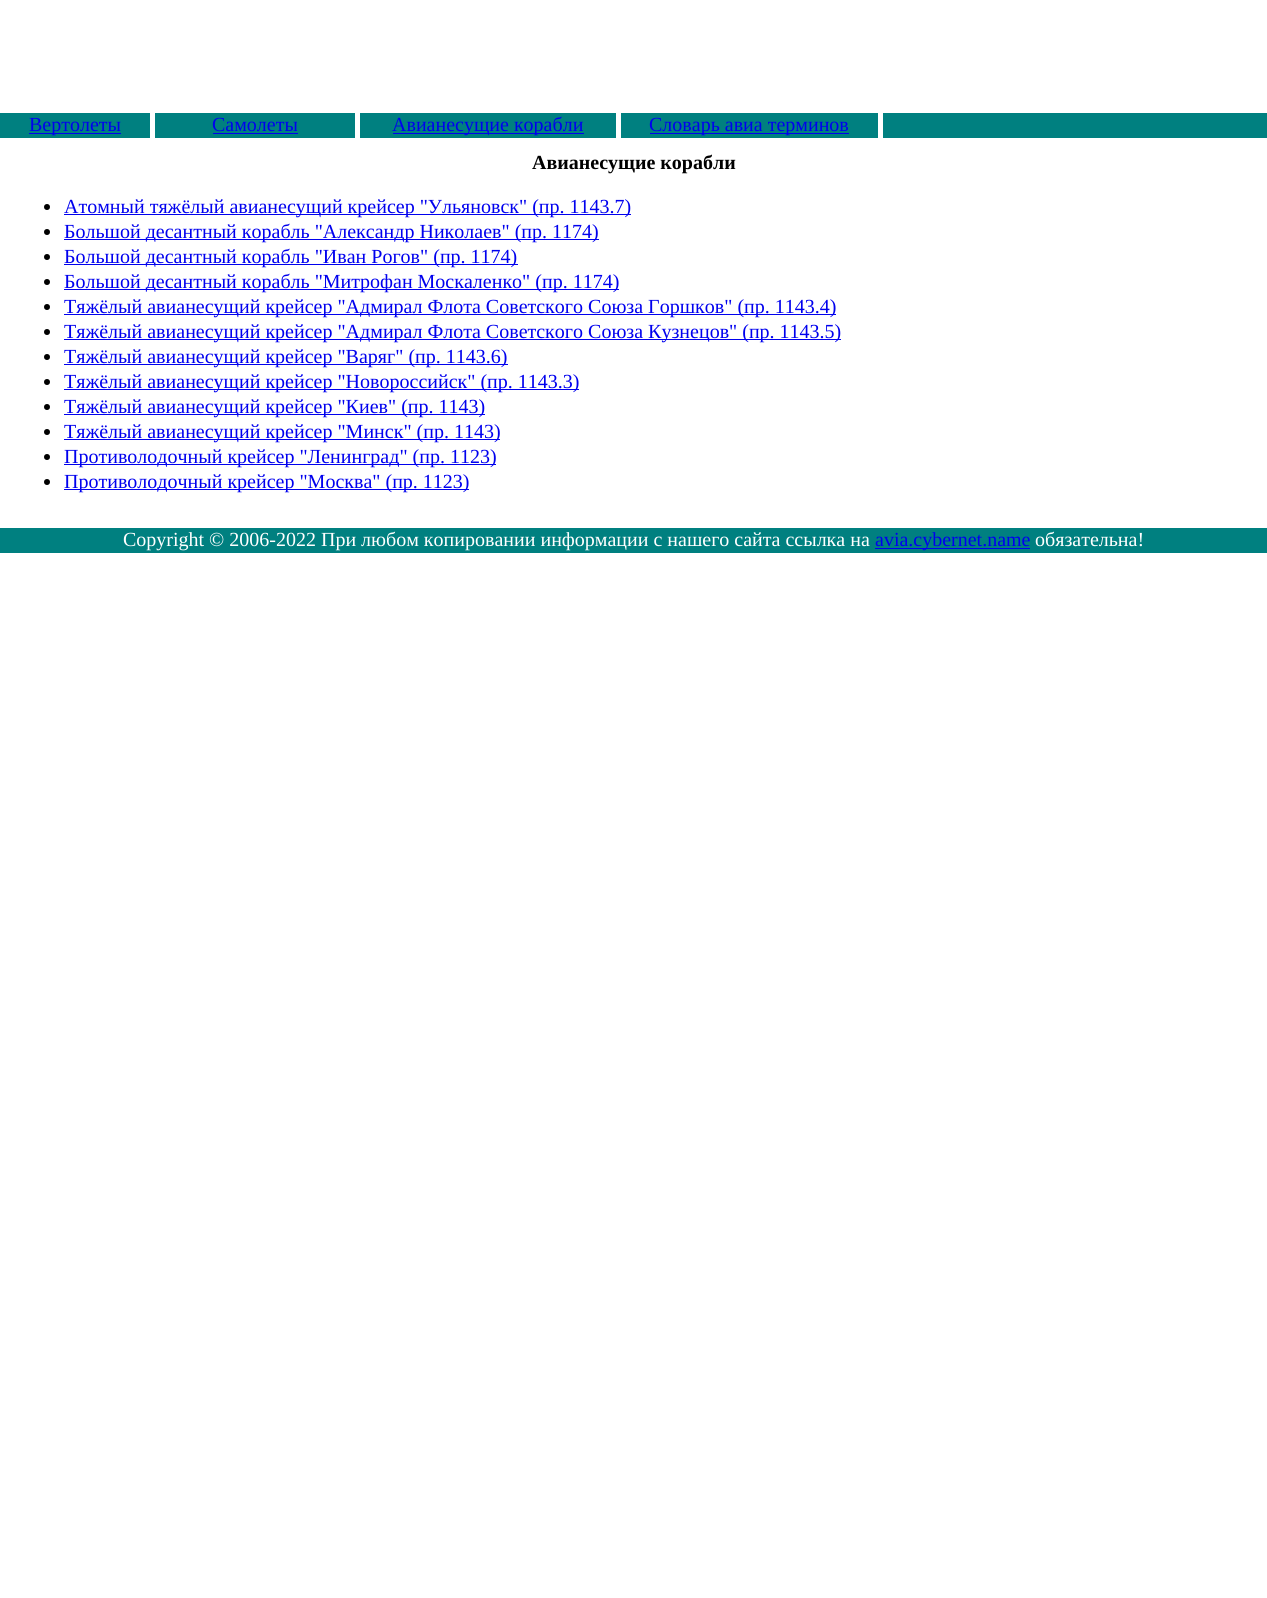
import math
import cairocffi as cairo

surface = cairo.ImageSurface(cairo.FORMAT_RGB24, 1267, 1598)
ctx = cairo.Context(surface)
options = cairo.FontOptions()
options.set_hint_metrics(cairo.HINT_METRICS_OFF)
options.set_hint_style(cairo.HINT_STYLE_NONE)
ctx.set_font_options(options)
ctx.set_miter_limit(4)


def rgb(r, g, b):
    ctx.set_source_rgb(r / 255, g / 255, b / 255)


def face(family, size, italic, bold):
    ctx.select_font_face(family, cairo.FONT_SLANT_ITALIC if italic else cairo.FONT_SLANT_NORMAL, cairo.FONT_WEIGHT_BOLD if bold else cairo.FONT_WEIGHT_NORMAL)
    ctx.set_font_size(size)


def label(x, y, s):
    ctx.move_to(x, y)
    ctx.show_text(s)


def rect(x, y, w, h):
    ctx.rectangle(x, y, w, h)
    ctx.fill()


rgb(255, 255, 255)
ctx.paint()
rgb(0, 128, 128)
rect(0, 113, 150, 25)
rgb(0, 0, 238)
rect(29, 133, 92, 1)
face('Liberation Serif', 20, 0, 0)
label(29, 131, 'Вертолеты')
rgb(0, 128, 128)
rect(155, 113, 200, 25)
rgb(0, 0, 238)
label(212, 131, 'Самолеты')
rect(213, 133, 85, 1)
rgb(0, 128, 128)
rect(360, 113, 256, 25)
rgb(0, 0, 238)
rect(393, 133, 191, 1)
label(392, 131, 'Авианесущие корабли')
rgb(0, 128, 128)
rect(621, 113, 257, 25)
rgb(0, 0, 238)
rect(650, 133, 199, 1)
label(649, 131, 'Словарь авиа терминов')
rgb(0, 128, 128)
rect(883, 113, 384, 25)
face('Liberation Serif', 20, 0, 1)
rgb(0, 0, 0)
label(532, 169, 'Авианесущие корабли')
ctx.new_path()
ctx.arc(47, 207, 3, 0, 2 * math.pi)
ctx.fill()
rgb(0, 0, 238)
rect(64, 214, 567, 1)
face('Liberation Serif', 20, 0, 0)
label(64, 213, 'Атомный тяжёлый авианесущий крейсер "Ульяновск" (пр. 1143.7)')
rgb(0, 0, 0)
ctx.new_path()
ctx.arc(47, 232, 3, 0, 2 * math.pi)
ctx.fill()
rgb(0, 0, 238)
rect(64, 239, 535, 1)
label(64, 238, 'Большой десантный корабль "Александр Николаев" (пр. 1174)')
rgb(0, 0, 0)
ctx.new_path()
ctx.arc(47, 257, 3, 0, 2 * math.pi)
ctx.fill()
rgb(0, 0, 238)
rect(64, 264, 454, 1)
label(64, 263, 'Большой десантный корабль "Иван Рогов" (пр. 1174)')
rgb(0, 0, 0)
ctx.new_path()
ctx.arc(47, 282, 3, 0, 2 * math.pi)
ctx.fill()
rgb(0, 0, 238)
rect(64, 289, 555, 1)
label(64, 288, 'Большой десантный корабль "Митрофан Москаленко" (пр. 1174)')
rgb(0, 0, 0)
ctx.new_path()
ctx.arc(47, 307, 3, 0, 2 * math.pi)
ctx.fill()
rgb(0, 0, 238)
rect(64, 314, 772, 1)
label(64, 313, 'Тяжёлый авианесущий крейсер "Адмирал Флота Советского Союза Горшков" (пр. 1143.4)')
rgb(0, 0, 0)
ctx.new_path()
ctx.arc(47, 332, 3, 0, 2 * math.pi)
ctx.fill()
rgb(0, 0, 238)
rect(64, 339, 777, 1)
label(64, 338, 'Тяжёлый авианесущий крейсер "Адмирал Флота Советского Союза Кузнецов" (пр. 1143.5)')
rgb(0, 0, 0)
ctx.new_path()
ctx.arc(47, 357, 3, 0, 2 * math.pi)
ctx.fill()
rgb(0, 0, 238)
rect(64, 364, 444, 1)
label(64, 363, 'Тяжёлый авианесущий крейсер "Варяг" (пр. 1143.6)')
rgb(0, 0, 0)
ctx.new_path()
ctx.arc(47, 382, 3, 0, 2 * math.pi)
ctx.fill()
rgb(0, 0, 238)
rect(64, 389, 515, 1)
label(64, 388, 'Тяжёлый авианесущий крейсер "Новороссийск" (пр. 1143.3)')
rgb(0, 0, 0)
ctx.new_path()
ctx.arc(47, 407, 3, 0, 2 * math.pi)
ctx.fill()
rgb(0, 0, 238)
rect(64, 414, 421, 1)
label(64, 413, 'Тяжёлый авианесущий крейсер "Киев" (пр. 1143)')
rgb(0, 0, 0)
ctx.new_path()
ctx.arc(47, 432, 3, 0, 2 * math.pi)
ctx.fill()
rgb(0, 0, 238)
rect(64, 439, 436, 1)
label(64, 438, 'Тяжёлый авианесущий крейсер "Минск" (пр. 1143)')
rgb(0, 0, 0)
ctx.new_path()
ctx.arc(47, 457, 3, 0, 2 * math.pi)
ctx.fill()
rgb(0, 0, 238)
rect(64, 464, 432, 1)
label(64, 463, 'Противолодочный крейсер "Ленинград" (пр. 1123)')
rgb(0, 0, 0)
ctx.new_path()
ctx.arc(47, 482, 3, 0, 2 * math.pi)
ctx.fill()
rgb(0, 0, 238)
rect(64, 489, 405, 1)
label(64, 488, 'Противолодочный крейсер "Москва" (пр. 1123)')
rgb(0, 128, 128)
rect(0, 528, 1267, 25)
rgb(255, 255, 255)
label(123, 546, 'Copyright © 2006-2022 При любом копировании информации с нашего сайта ссылка на')
rgb(0, 0, 238)
rect(875, 548, 155, 1)
label(875, 546, 'avia.cybernet.name')
rgb(255, 255, 255)
label(1035, 546, 'обязательна!')
surface.write_to_png('render.png')
